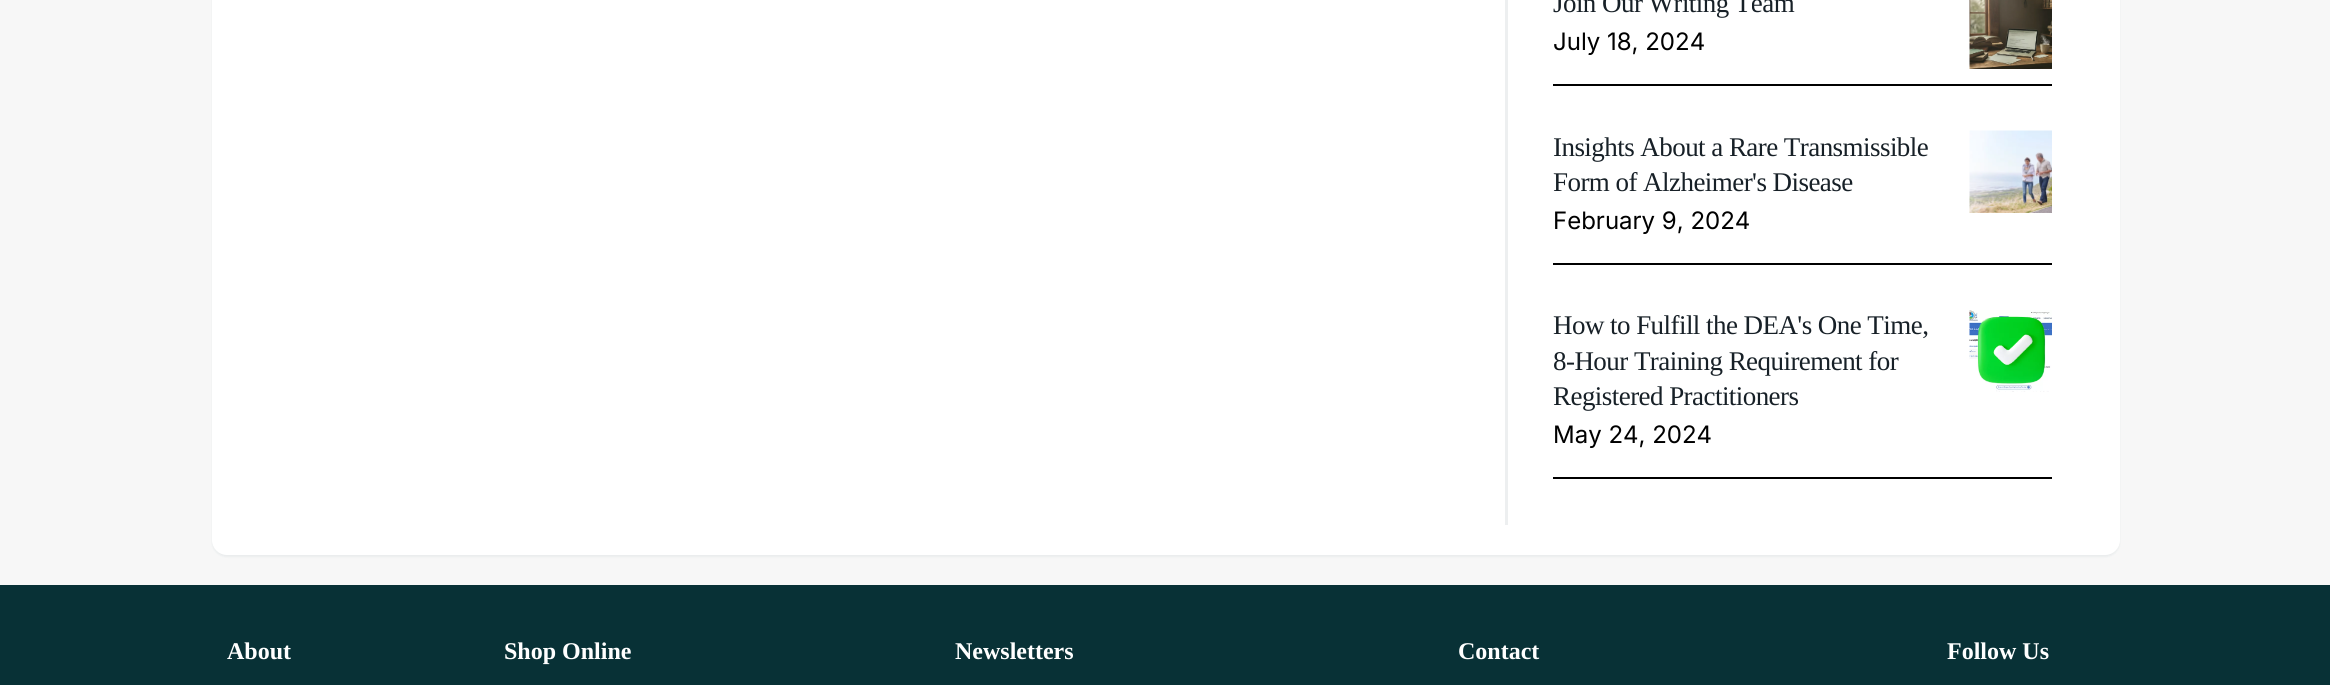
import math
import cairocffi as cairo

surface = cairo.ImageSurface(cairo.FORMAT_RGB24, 2330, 685)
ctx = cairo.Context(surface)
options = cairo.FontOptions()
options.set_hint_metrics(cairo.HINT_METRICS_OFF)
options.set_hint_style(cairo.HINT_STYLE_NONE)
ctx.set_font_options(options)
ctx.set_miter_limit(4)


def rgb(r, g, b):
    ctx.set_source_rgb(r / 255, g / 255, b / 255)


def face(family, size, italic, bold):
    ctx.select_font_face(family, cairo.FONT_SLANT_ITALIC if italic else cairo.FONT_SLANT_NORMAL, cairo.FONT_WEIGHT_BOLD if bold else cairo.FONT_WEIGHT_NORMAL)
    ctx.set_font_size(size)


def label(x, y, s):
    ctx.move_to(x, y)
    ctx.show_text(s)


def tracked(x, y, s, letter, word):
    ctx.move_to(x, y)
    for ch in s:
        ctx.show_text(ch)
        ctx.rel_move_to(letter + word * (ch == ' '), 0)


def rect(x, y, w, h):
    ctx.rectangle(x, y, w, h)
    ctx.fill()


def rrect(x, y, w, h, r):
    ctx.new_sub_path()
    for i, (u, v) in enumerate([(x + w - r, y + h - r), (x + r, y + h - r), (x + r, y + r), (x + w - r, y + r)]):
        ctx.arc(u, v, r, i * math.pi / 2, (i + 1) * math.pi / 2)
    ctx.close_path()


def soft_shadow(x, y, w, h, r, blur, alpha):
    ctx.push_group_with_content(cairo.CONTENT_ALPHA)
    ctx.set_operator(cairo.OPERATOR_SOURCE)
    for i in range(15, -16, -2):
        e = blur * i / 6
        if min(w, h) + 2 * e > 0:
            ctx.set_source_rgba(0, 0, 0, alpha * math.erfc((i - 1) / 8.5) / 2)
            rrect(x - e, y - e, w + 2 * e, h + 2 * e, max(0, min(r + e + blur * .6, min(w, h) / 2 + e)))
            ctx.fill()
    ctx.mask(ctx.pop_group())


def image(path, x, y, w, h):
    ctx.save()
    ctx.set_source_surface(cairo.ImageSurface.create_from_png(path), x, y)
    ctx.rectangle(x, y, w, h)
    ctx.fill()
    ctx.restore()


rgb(247, 247, 247)
ctx.paint()
rgb(18, 66, 87)
soft_shadow(212, -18, 1908, 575, 15, 1, 0.06)
rgb(255, 255, 255)
rrect(212, -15, 1908, 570, 15)
ctx.fill()
rgb(237, 239, 240)
rect(1505, 0, 3, 525)
rgb(0, 0, 0)
rect(1553, 84, 499, 2)
face('Liberation Serif', 27, 0, 0)
rgb(23, 32, 39)
tracked(1553, 12, 'Join Our Writing Team', -0.55, 0)
face('Inter', 24, 0, 0)
rgb(0, 0, 0)
label(1553, 50, 'July 18, 2024')
image('image0.png', 1969, 0, 83, 69)
rect(1553, 263, 499, 2)
face('Liberation Serif', 27, 0, 0)
rgb(23, 32, 39)
tracked(1553, 156, 'Insights About a Rare Transmissible', -0.55, 0)
tracked(1553, 191, 'Form of Alzheimer\'s Disease', -0.55, 0)
face('Inter', 24, 0, 0)
rgb(0, 0, 0)
label(1553, 229, 'February 9, 2024')
image('image1.png', 1969, 130, 83, 83)
rect(1553, 477, 499, 2)
face('Liberation Serif', 27, 0, 0)
rgb(23, 32, 39)
tracked(1553, 334, 'How to Fulfill the DEA\'s One Time,', -0.55, 0)
tracked(1553, 370, '8-Hour Training Requirement for', -0.55, 0)
tracked(1553, 405, 'Registered Practitioners', -0.55, 0)
face('Inter', 24, 0, 0)
rgb(0, 0, 0)
label(1553, 443, 'May 24, 2024')
image('image2.png', 1969, 310, 83, 82)
rgb(8, 49, 54)
rect(0, 585, 2330, 100)
face('Liberation Serif', 24, 0, 1)
rgb(255, 255, 255)
label(227, 659, 'About')
label(504, 659, 'Shop Online')
label(955, 659, 'Newsletters')
label(1458, 659, 'Contact')
label(1947, 659, 'Follow Us')
surface.write_to_png('render.png')
